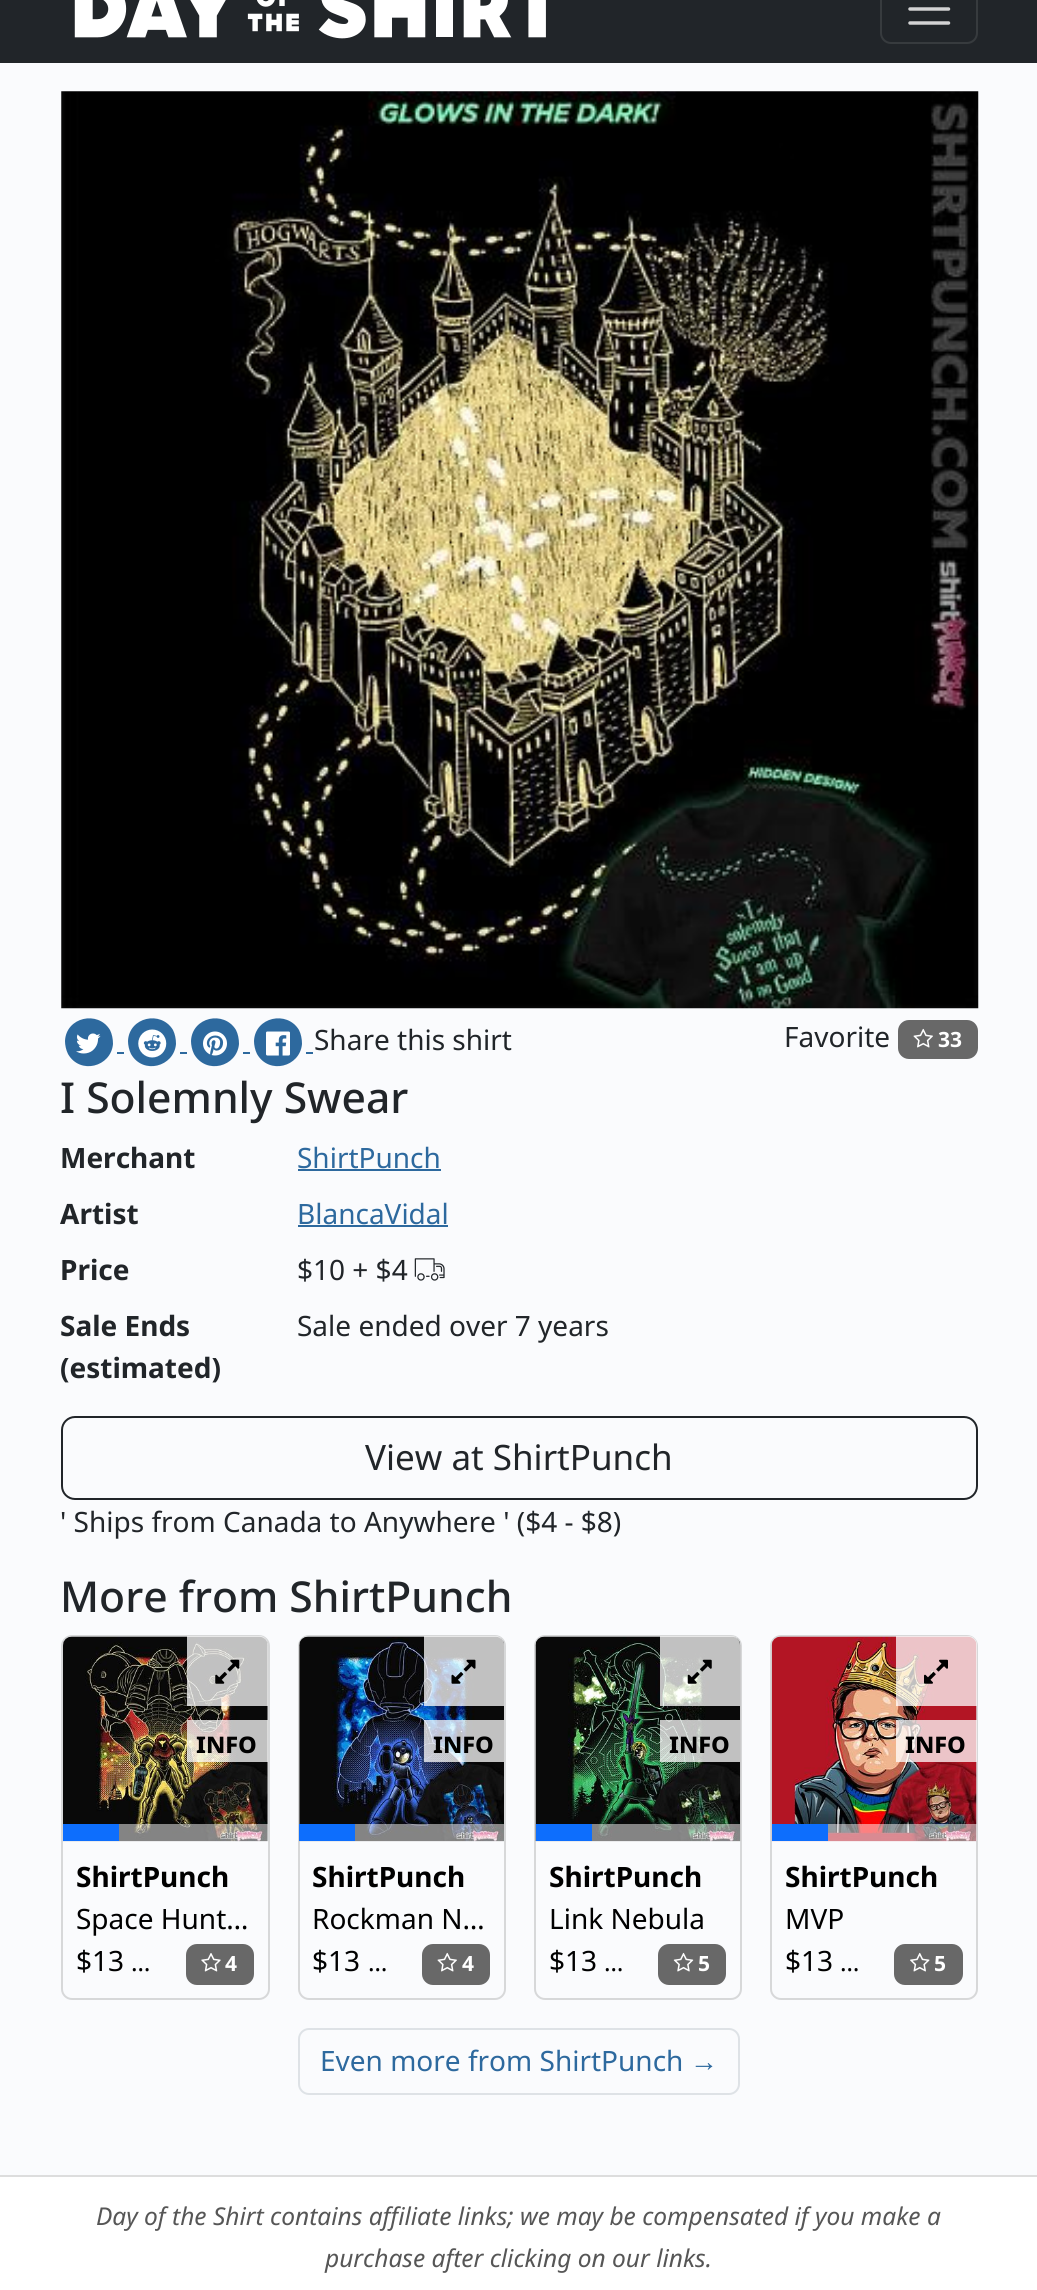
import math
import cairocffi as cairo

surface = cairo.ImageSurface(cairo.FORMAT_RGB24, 1037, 2290)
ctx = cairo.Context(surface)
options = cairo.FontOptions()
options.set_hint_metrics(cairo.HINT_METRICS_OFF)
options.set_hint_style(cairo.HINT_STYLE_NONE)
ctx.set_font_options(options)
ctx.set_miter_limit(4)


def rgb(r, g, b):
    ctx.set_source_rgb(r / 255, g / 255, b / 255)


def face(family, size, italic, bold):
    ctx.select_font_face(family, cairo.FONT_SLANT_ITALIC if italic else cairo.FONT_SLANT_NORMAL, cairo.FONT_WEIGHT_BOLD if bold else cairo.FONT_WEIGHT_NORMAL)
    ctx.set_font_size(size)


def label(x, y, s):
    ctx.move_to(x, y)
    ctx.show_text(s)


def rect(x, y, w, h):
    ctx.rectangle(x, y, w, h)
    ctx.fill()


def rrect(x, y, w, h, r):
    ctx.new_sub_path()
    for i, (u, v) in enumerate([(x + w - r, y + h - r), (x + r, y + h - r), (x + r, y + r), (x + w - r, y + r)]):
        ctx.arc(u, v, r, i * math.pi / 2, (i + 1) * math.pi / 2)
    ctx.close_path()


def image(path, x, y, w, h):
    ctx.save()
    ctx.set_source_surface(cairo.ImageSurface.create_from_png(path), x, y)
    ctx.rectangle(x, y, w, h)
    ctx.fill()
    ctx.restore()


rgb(250, 251, 253)
ctx.paint()
rgb(33, 37, 41)
rect(0, 0, 1037, 63)
image('image0.png', 74, 0, 472, 39)
rrect(881, -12, 96, 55, 10)
rgb(55, 59, 62)
ctx.stroke()
ctx.new_path()
ctx.move_to(910, -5)
ctx.line_to(948.5, -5)
ctx.move_to(910, 9)
ctx.line_to(948.5, 9)
ctx.move_to(910, 23)
ctx.line_to(948.5, 23)
rgb(211, 211, 212)
ctx.set_line_width(3.5)
ctx.set_line_cap(cairo.LINE_CAP_ROUND)
ctx.stroke()
image('image1.png', 61, 91, 918, 918)
rgb(45, 105, 158)
ctx.new_path()
ctx.move_to(110, 1030)
ctx.curve_to(112, 1034, 113, 1039, 113, 1044)
ctx.curve_to(111, 1067, 80, 1075, 68, 1054)
ctx.curve_to(66, 1050, 65, 1045, 65, 1041)
ctx.curve_to(66, 1017, 98, 1010, 110, 1030)
ctx.close_path()
ctx.fill()
image('image2.png', 76, 1033, 25, 21)
rect(117, 1052, 7, 2)
ctx.new_path()
ctx.move_to(173, 1030)
ctx.curve_to(175, 1034, 176, 1039, 176, 1044)
ctx.curve_to(174, 1067, 143, 1075, 131, 1054)
ctx.curve_to(129, 1050, 128, 1045, 128, 1041)
ctx.curve_to(129, 1017, 161, 1010, 173, 1030)
ctx.close_path()
ctx.fill()
image('image3.png', 138, 1029, 29, 29)
rect(180, 1052, 7, 2)
ctx.new_path()
ctx.move_to(236, 1030)
ctx.curve_to(238, 1034, 239, 1039, 239, 1044)
ctx.curve_to(237, 1067, 206, 1075, 194, 1054)
ctx.curve_to(192, 1050, 191, 1045, 191, 1041)
ctx.curve_to(192, 1017, 224, 1010, 236, 1030)
ctx.close_path()
ctx.fill()
image('image4.png', 203, 1031, 24, 25)
rect(243, 1052, 7, 2)
ctx.new_path()
ctx.move_to(299, 1030)
ctx.curve_to(301, 1034, 302, 1039, 302, 1044)
ctx.curve_to(300, 1067, 269, 1075, 257, 1054)
ctx.curve_to(255, 1050, 254, 1045, 254, 1041)
ctx.curve_to(255, 1017, 287, 1010, 299, 1030)
ctx.close_path()
ctx.fill()
image('image5.png', 266, 1031, 24, 25)
rect(306, 1052, 7, 2)
face('Noto Sans', 28, 0, 0)
rgb(33, 37, 41)
label(314, 1050, 'Share this shirt')
label(784, 1047, 'Favorite')
rgb(104, 104, 104)
rrect(898, 1020, 80, 39, 11)
ctx.fill()
image('image6.png', 913, 1028, 20, 20)
face('Noto Sans', 21, 0, 1)
rgb(255, 255, 255)
label(938, 1047, '33')
face('Noto Sans Medium', 42.6, 0, 0)
rgb(33, 37, 41)
label(60, 1113, 'I Solemnly Swear')
face('Noto Sans', 28, 0, 1)
label(60, 1168, 'Merchant')
face('Noto Sans', 28, 0, 0)
rgb(45, 105, 158)
label(297, 1168, 'ShirtPunch')
rect(298, 1169, 143, 2)
face('Noto Sans', 28, 0, 1)
rgb(33, 37, 41)
label(60, 1224, 'Artist')
face('Noto Sans', 28, 0, 0)
rgb(45, 105, 158)
label(297, 1224, 'BlancaVidal')
rect(298, 1225, 150, 2)
face('Noto Sans', 28, 0, 1)
rgb(33, 37, 41)
label(60, 1280, 'Price')
face('Noto Sans', 28, 0, 0)
label(297, 1280, '$10 + $4')
image('image7.png', 414, 1258, 31, 23)
face('Noto Sans', 28, 0, 1)
label(60, 1336, 'Sale Ends')
label(60, 1378, '(estimated)')
face('Noto Sans', 28, 0, 0)
label(297, 1336, 'Sale ended over 7 years')
rrect(62, 1417, 915, 82, 13)
ctx.set_line_width(2)
ctx.set_line_cap(cairo.LINE_CAP_BUTT)
ctx.stroke()
face('Noto Sans', 35, 0, 0)
label(365, 1470, 'View at ShirtPunch')
face('Noto Sans', 28, 0, 0)
label(60, 1532, '\' Ships from Canada to Anywhere \' ($4 - $8)')
face('Noto Sans Medium', 42.6, 0, 0)
label(60, 1612, 'More from ShirtPunch')
rrect(62, 1636, 207, 363, 10)
rgb(215, 216, 217)
ctx.stroke()
image('image9.png', 63, 1636, 205, 206)
ctx.set_source_rgba(1, 1, 1, 0.75)
ctx.new_path()
ctx.move_to(187, 1636)
ctx.line_to(259, 1636)
ctx.curve_to(264, 1636, 268, 1640, 268, 1645)
ctx.line_to(268, 1706)
ctx.line_to(187, 1706)
ctx.close_path()
ctx.fill()
image('image8.png', 215, 1659, 25, 25)
rect(187, 1720, 81, 42)
face('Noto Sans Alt', 28, 0, 1)
rgb(0, 0, 0)
label(196, 1753, 'info')
ctx.set_source_rgba(1, 1, 1, 0.5)
rect(119, 1824, 149, 17)
rgb(13, 110, 253)
rect(63, 1824, 56, 17)
face('Noto Sans', 28, 0, 1)
rgb(0, 0, 0)
label(76, 1887, 'ShirtPunch')
face('Noto Sans', 28, 0, 0)
label(76, 1929, 'Space Hunt…')
label(76, 1971, '$13')
face('Noto Sans', 24.5, 0, 0)
label(131, 1971, '…')
rgb(104, 104, 104)
rrect(186, 1944, 68, 41, 11)
ctx.fill()
image('image10.png', 201, 1953, 20, 19)
face('Noto Sans', 21, 0, 1)
rgb(255, 255, 255)
label(225, 1971, '4')
rrect(299, 1636, 206, 363, 10)
rgb(215, 216, 217)
ctx.stroke()
image('image12.png', 299, 1636, 205, 206)
ctx.set_source_rgba(1, 1, 1, 0.75)
ctx.new_path()
ctx.move_to(424, 1636)
ctx.line_to(495, 1636)
ctx.curve_to(500, 1636, 504, 1640, 504, 1645)
ctx.line_to(504, 1706)
ctx.line_to(424, 1706)
ctx.close_path()
ctx.fill()
image('image11.png', 451, 1659, 25, 25)
rect(424, 1720, 80, 42)
face('Noto Sans Alt', 28, 0, 1)
rgb(0, 0, 0)
label(433, 1753, 'info')
ctx.set_source_rgba(1, 1, 1, 0.5)
rect(355, 1824, 149, 17)
rgb(13, 110, 253)
rect(299, 1824, 56, 17)
face('Noto Sans', 28, 0, 1)
rgb(0, 0, 0)
label(312, 1887, 'ShirtPunch')
face('Noto Sans', 28, 0, 0)
label(312, 1929, 'Rockman N…')
label(312, 1971, '$13')
face('Noto Sans', 24.5, 0, 0)
label(368, 1971, '…')
rgb(104, 104, 104)
rrect(422, 1944, 68, 41, 11)
ctx.fill()
image('image6.png', 437, 1952, 20, 20)
face('Noto Sans', 21, 0, 1)
rgb(255, 255, 255)
label(462, 1971, '4')
rrect(535, 1636, 206, 363, 10)
rgb(215, 216, 217)
ctx.stroke()
image('image14.png', 535, 1636, 206, 206)
ctx.set_source_rgba(1, 1, 1, 0.75)
ctx.new_path()
ctx.move_to(660, 1636)
ctx.line_to(731, 1636)
ctx.curve_to(736, 1636, 740, 1640, 740, 1645)
ctx.line_to(740, 1706)
ctx.line_to(660, 1706)
ctx.close_path()
ctx.fill()
image('image13.png', 687, 1659, 25, 25)
rect(660, 1720, 80, 42)
face('Noto Sans Alt', 28, 0, 1)
rgb(0, 0, 0)
label(669, 1753, 'info')
ctx.set_source_rgba(1, 1, 1, 0.5)
rect(592, 1824, 148, 17)
rgb(13, 110, 253)
rect(536, 1824, 56, 17)
ctx.save()
ctx.rectangle(550, 1855, 176, 42)
ctx.clip()
face('Noto Sans', 28, 0, 1)
rgb(0, 0, 0)
label(549, 1887, 'ShirtPunch')
ctx.restore()
face('Noto Sans', 28, 0, 0)
rgb(0, 0, 0)
label(549, 1929, 'Link Nebula')
label(549, 1971, '$13')
face('Noto Sans', 24.5, 0, 0)
label(604, 1971, '…')
rgb(104, 104, 104)
rrect(658, 1944, 68, 41, 11)
ctx.fill()
image('image15.png', 673, 1952, 21, 20)
face('Noto Sans', 21, 0, 1)
rgb(255, 255, 255)
label(698, 1971, '5')
rrect(771, 1636, 206, 363, 10)
rgb(215, 216, 217)
ctx.stroke()
image('image17.png', 771, 1636, 206, 206)
ctx.set_source_rgba(1, 1, 1, 0.75)
ctx.new_path()
ctx.move_to(896, 1636)
ctx.line_to(968, 1636)
ctx.curve_to(973, 1636, 977, 1640, 977, 1645)
ctx.line_to(977, 1706)
ctx.line_to(896, 1706)
ctx.close_path()
ctx.fill()
image('image16.png', 924, 1659, 24, 25)
rect(896, 1720, 81, 42)
face('Noto Sans Alt', 28, 0, 1)
rgb(0, 0, 0)
label(905, 1753, 'info')
ctx.set_source_rgba(1, 1, 1, 0.5)
rect(828, 1824, 149, 17)
rgb(13, 110, 253)
rect(772, 1824, 56, 17)
face('Noto Sans', 28, 0, 1)
rgb(0, 0, 0)
label(785, 1887, 'ShirtPunch')
face('Noto Sans', 28, 0, 0)
label(785, 1929, 'MVP')
label(785, 1971, '$13')
face('Noto Sans', 24.5, 0, 0)
label(840, 1971, '…')
rgb(104, 104, 104)
rrect(894, 1944, 69, 41, 11)
ctx.fill()
image('image18.png', 910, 1952, 20, 20)
face('Noto Sans', 21, 0, 1)
rgb(255, 255, 255)
label(934, 1971, '5')
rrect(299, 2029, 440, 65, 10)
rgb(222, 226, 230)
ctx.stroke()
face('Noto Sans', 28, 0, 0)
rgb(45, 105, 158)
label(320, 2071, 'Even more from ShirtPunch')
face('Liberation Sans', 28, 0, 0)
label(690, 2071, '→')
rgb(255, 255, 255)
rect(0, 2177, 1037, 113)
rgb(221, 221, 221)
rect(0, 2175, 1037, 2)
face('Noto Sans', 24.5, 1, 0)
rgb(86, 86, 86)
label(96, 2225, 'Day of the Shirt contains affiliate links; we may be compensated if you make a')
label(325, 2267, 'purchase after clicking on our links.')
surface.write_to_png('render.png')
